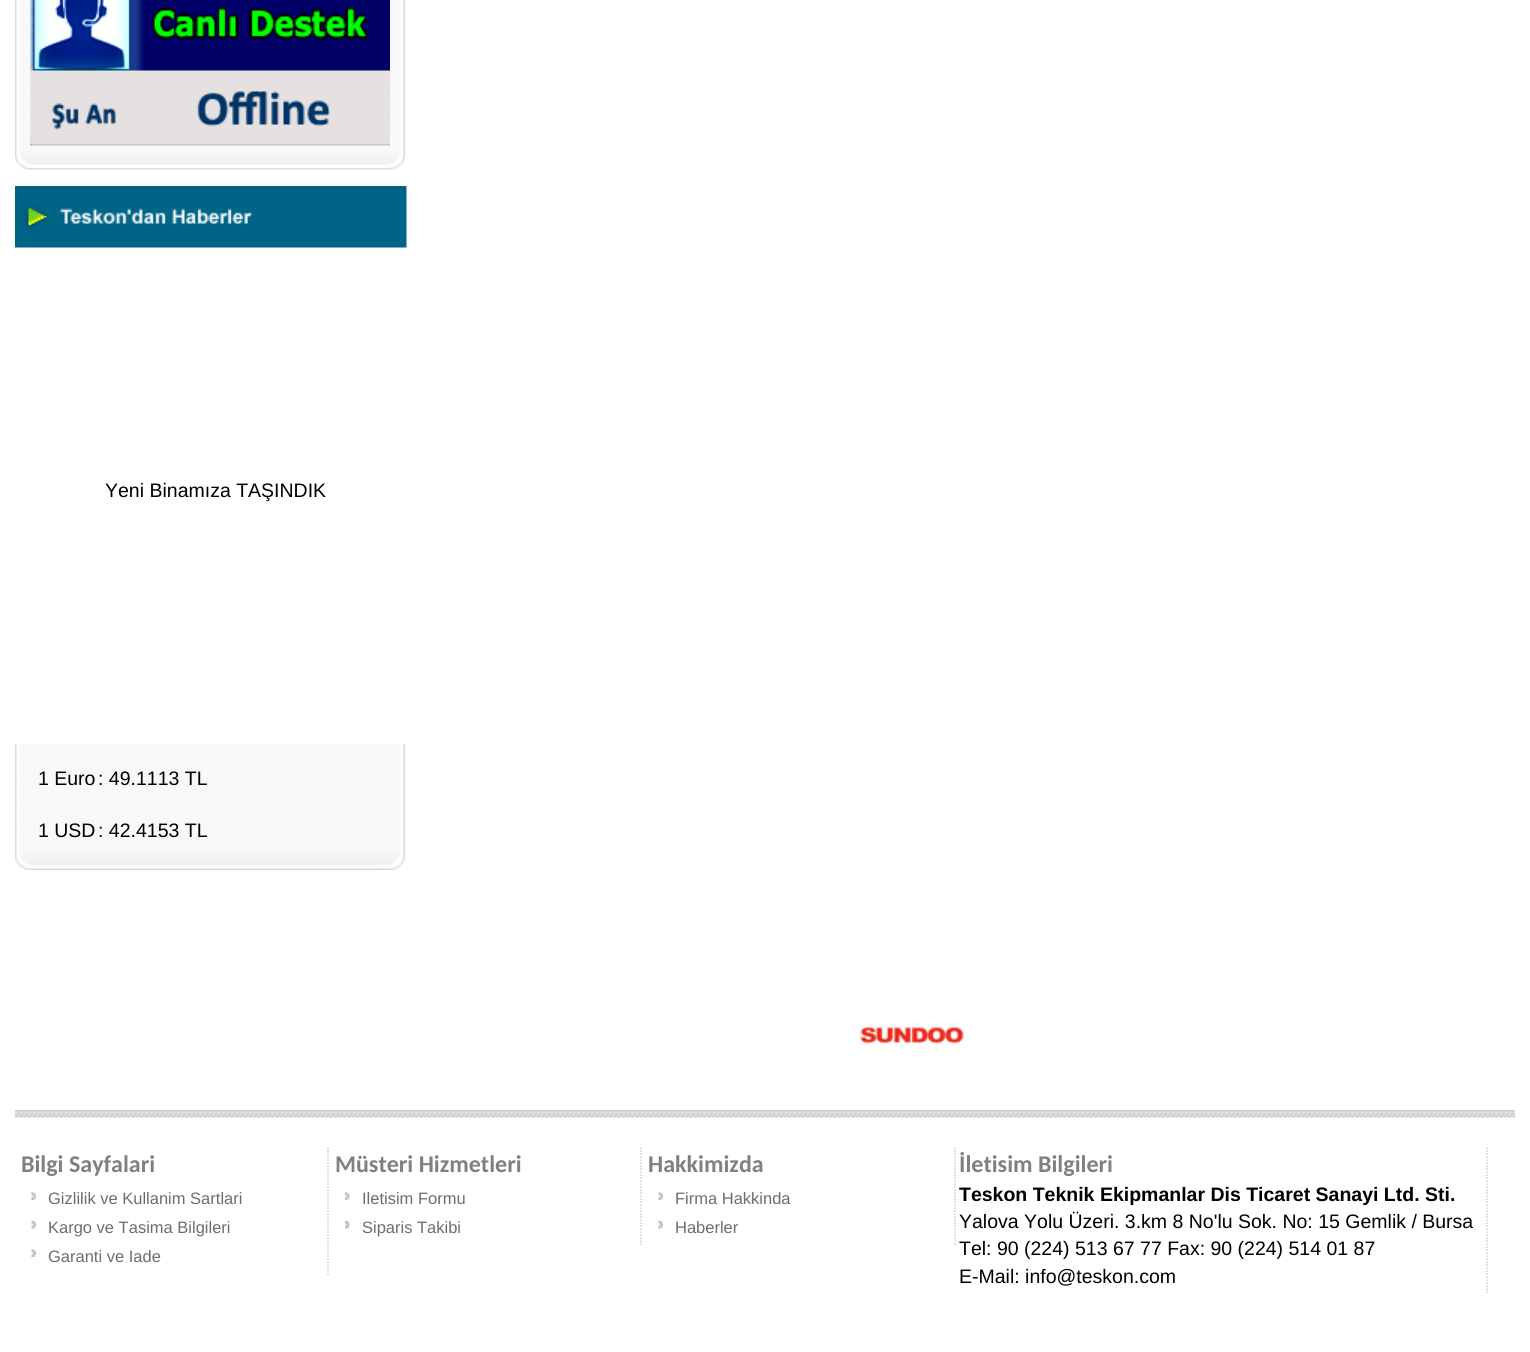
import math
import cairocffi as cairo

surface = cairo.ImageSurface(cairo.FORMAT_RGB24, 1530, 1352)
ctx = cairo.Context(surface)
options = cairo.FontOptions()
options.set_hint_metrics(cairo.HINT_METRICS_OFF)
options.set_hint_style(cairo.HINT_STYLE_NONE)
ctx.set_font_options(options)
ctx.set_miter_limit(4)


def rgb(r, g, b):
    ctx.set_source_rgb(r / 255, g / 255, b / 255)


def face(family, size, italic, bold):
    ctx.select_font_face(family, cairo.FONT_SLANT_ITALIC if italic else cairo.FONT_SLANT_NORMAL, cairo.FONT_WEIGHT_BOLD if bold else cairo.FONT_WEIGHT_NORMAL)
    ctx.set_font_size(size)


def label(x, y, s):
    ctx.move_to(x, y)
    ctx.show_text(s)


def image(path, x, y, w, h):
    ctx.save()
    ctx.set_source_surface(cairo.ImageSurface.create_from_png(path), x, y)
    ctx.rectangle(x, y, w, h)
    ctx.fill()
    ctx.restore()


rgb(255, 255, 255)
ctx.paint()
image('image0.png', 15, 145, 390, 25)
image('image1.png', 15, 0, 390, 146)
image('image2.png', 30, 0, 360, 146)
image('image3.png', 15, 186, 392, 62)
face('Liberation Sans', 19.5, 0, 0)
rgb(0, 0, 0)
label(105, 497, 'Yeni Binamıza TAŞINDIK')
image('image4.png', 15, 846, 390, 24)
image('image5.png', 15, 744, 390, 102)
label(38, 785, '1 Euro')
label(98, 785, ': 49.1113 TL')
label(38, 837, '1 USD')
label(98, 837, ': 42.4153 TL')
image('image6.png', 15, 1110, 1500, 8)
image('image7.png', 859, 1026, 106, 19)
ctx.new_path()
ctx.move_to(328, 1147.5)
ctx.line_to(328, 1275)
rgb(203, 203, 203)
ctx.set_line_width(1.5)
ctx.set_dash([1.5, 1.5])
ctx.stroke()
face('Carlito', 24, 0, 1)
rgb(128, 128, 128)
label(21, 1172, 'Bilgi Sayfalari')
image('image8.png', 31, 1192, 5, 8)
face('Liberation Sans', 16.5, 0, 0)
rgb(109, 109, 109)
label(48, 1204, 'Gizlilik ve Kullanim Sartlari')
image('image9.png', 31, 1221, 5, 8)
label(48, 1233, 'Kargo ve Tasima Bilgileri')
image('image8.png', 31, 1249, 5, 8)
label(48, 1262, 'Garanti ve Iade')
ctx.new_path()
ctx.move_to(641, 1147.5)
ctx.line_to(641, 1245)
rgb(203, 203, 203)
ctx.stroke()
face('Carlito', 24, 0, 1)
rgb(128, 128, 128)
label(335, 1172, 'Müsteri Hizmetleri')
image('image10.png', 345, 1192, 5, 8)
face('Liberation Sans', 16.5, 0, 0)
rgb(109, 109, 109)
label(362, 1204, 'Iletisim Formu')
image('image11.png', 345, 1221, 5, 8)
label(362, 1233, 'Siparis Takibi')
ctx.new_path()
ctx.move_to(955, 1147.5)
ctx.line_to(955, 1245)
rgb(203, 203, 203)
ctx.stroke()
face('Carlito', 24, 0, 1)
rgb(128, 128, 128)
label(648, 1172, 'Hakkimizda')
image('image12.png', 658, 1192, 5, 8)
face('Liberation Sans', 16.5, 0, 0)
rgb(109, 109, 109)
label(675, 1204, 'Firma Hakkinda')
image('image13.png', 658, 1221, 5, 8)
label(675, 1233, 'Haberler')
ctx.new_path()
ctx.move_to(1487, 1147.5)
ctx.line_to(1487, 1293)
rgb(203, 203, 203)
ctx.stroke()
face('Carlito', 24, 0, 1)
rgb(128, 128, 128)
label(959, 1172, 'İletisim Bilgileri')
face('Liberation Sans', 19.5, 0, 1)
rgb(0, 0, 0)
label(959, 1201, 'Teskon Teknik Ekipmanlar Dis Ticaret Sanayi Ltd. Sti.')
face('Liberation Sans', 19.5, 0, 0)
label(959, 1228, 'Yalova Yolu Üzeri. 3.km 8 No\'lu Sok. No: 15 Gemlik / Bursa')
label(959, 1255, 'Tel: 90 (224) 513 67 77 Fax: 90 (224) 514 01 87')
label(959, 1283, 'E-Mail: info@teskon.com')
surface.write_to_png('render.png')
